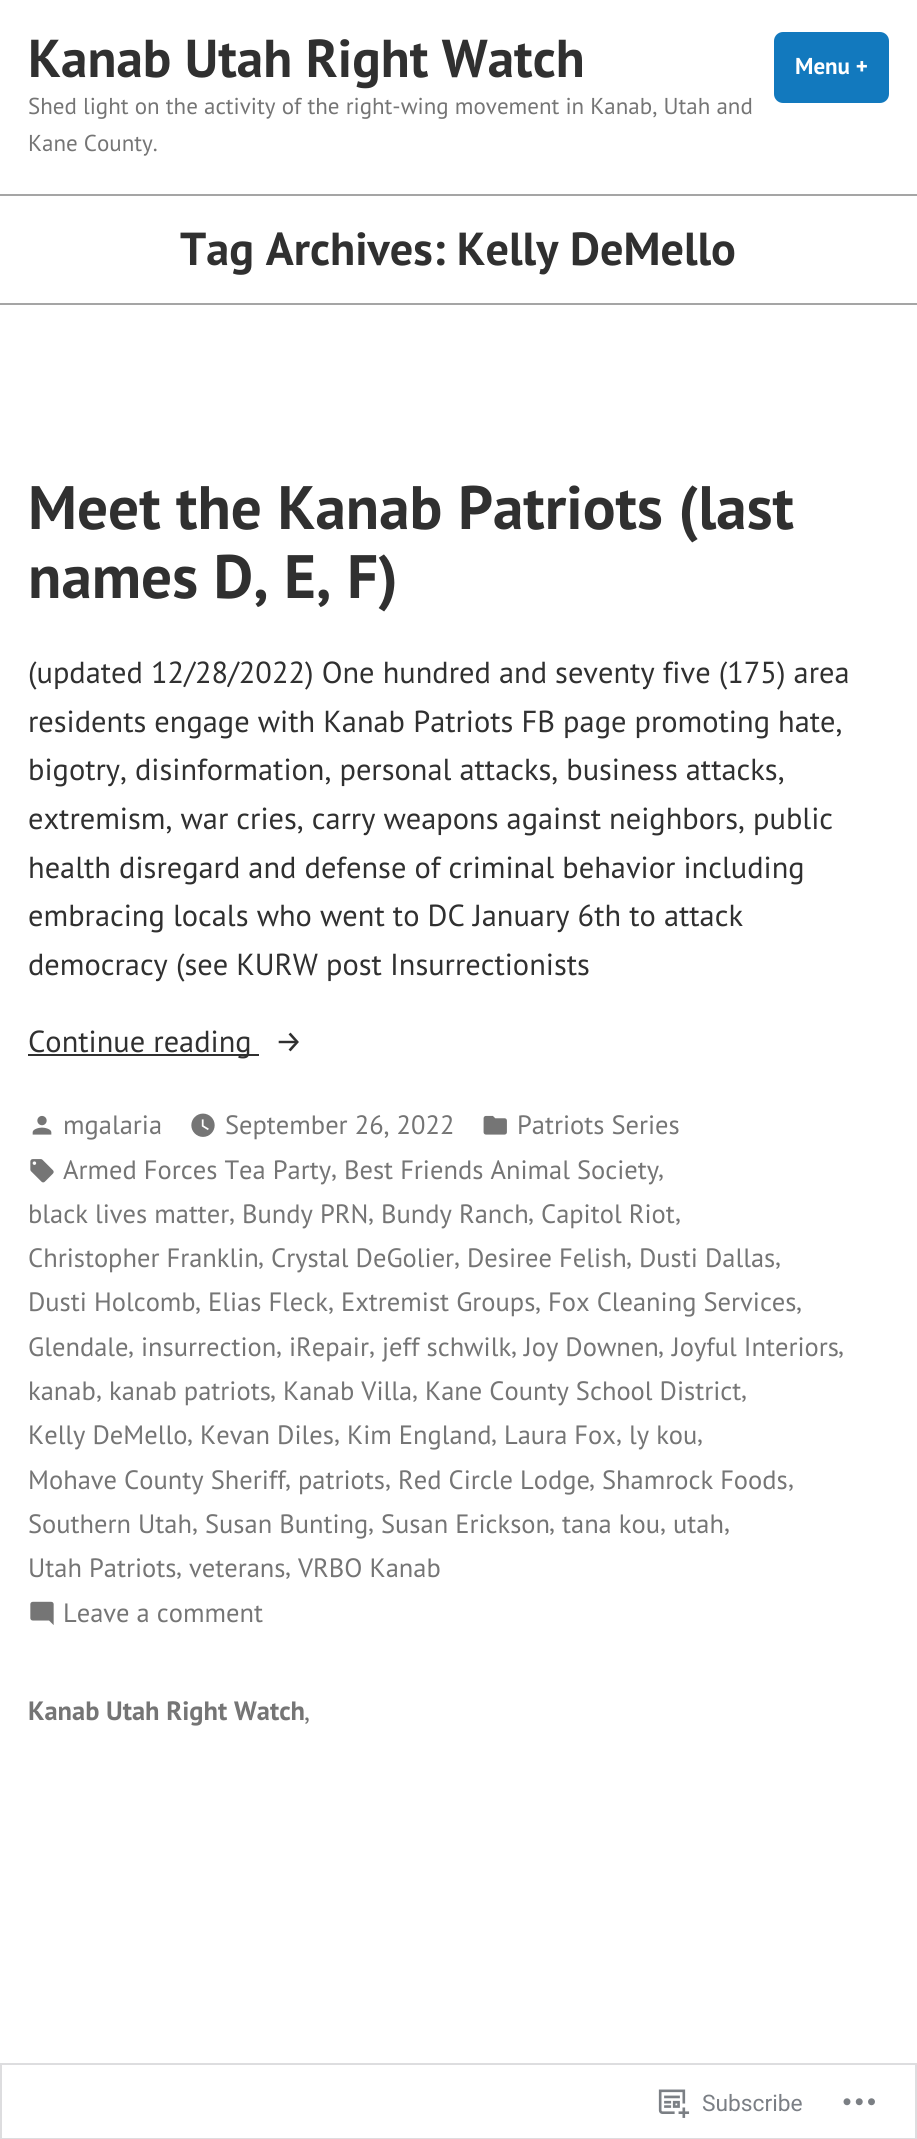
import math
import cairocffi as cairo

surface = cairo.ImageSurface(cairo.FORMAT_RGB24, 917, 2139)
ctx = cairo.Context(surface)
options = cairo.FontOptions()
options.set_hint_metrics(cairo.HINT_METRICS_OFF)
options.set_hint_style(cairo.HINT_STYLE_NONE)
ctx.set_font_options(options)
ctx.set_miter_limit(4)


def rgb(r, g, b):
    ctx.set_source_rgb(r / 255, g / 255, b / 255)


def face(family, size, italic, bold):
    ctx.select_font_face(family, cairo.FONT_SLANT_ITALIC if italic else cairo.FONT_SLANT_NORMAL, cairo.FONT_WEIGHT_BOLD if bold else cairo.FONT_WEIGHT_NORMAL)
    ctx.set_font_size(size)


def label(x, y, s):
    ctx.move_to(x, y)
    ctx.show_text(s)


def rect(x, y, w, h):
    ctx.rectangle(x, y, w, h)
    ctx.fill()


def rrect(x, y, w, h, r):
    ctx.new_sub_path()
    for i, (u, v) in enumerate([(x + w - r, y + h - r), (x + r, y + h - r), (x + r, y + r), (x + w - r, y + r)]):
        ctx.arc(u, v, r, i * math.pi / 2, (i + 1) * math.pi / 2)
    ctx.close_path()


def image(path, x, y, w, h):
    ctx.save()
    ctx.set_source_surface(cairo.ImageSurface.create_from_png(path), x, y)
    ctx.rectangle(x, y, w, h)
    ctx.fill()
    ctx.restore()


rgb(255, 255, 255)
ctx.paint()
face('PT Sans', 53.25, 0, 1)
rgb(48, 48, 48)
label(28, 77, 'Kanab Utah Right Watch')
rgb(18, 121, 190)
rrect(774, 32, 115, 71, 9)
ctx.fill()
face('PT Sans', 23, 0, 1)
rgb(255, 255, 255)
label(795, 74, 'Menu +')
face('PT Sans', 23, 0, 0)
rgb(117, 117, 117)
label(28, 114, 'Shed light on the activity of the right-wing movement in Kanab, Utah and')
label(28, 151, 'Kane County.')
rgb(165, 165, 165)
rect(0, 194, 917, 2)
face('PT Sans', 46.25, 0, 1)
rgb(48, 48, 48)
label(180, 265, 'Tag Archives: Kelly DeMello')
rgb(165, 165, 165)
rect(0, 303, 917, 2)
face('PT Sans', 61.25, 0, 1)
rgb(48, 48, 48)
label(28, 529, 'Meet the Kanab Patriots (last')
label(28, 598, 'names D, E, F)')
face('PT Sans', 30.4, 0, 0)
label(28, 683, '(updated 12/28/2022) One hundred and seventy five (175) area')
label(28, 732, 'residents engage with Kanab Patriots FB page promoting hate,')
label(28, 780, 'bigotry, disinformation, personal attacks, business attacks,')
label(28, 829, 'extremism, war cries, carry weapons against neighbors, public')
label(28, 878, 'health disregard and defense of criminal behavior including')
label(28, 926, 'embracing locals who went to DC January 6th to attack')
label(28, 975, 'democracy (see KURW post Insurrectionists')
rect(28, 1054, 231, 2)
label(28, 1052, 'Continue reading')
face('Fira Sans', 30.4, 0, 0)
label(275, 1052, '→')
image('image0.png', 32, 1115, 20, 20)
face('PT Sans', 26.5, 0, 0)
rgb(117, 117, 117)
label(63, 1134, 'mgalaria')
image('image1.png', 191, 1113, 24, 24)
label(225, 1134, 'September 26, 2022')
image('image2.png', 483, 1115, 24, 20)
label(517, 1134, 'Patriots Series')
image('image3.png', 30, 1159, 24, 24)
label(63, 1179, 'Armed Forces Tea Party')
label(331, 1177, ',')
label(344, 1179, 'Best Friends Animal Society')
label(658, 1177, ',')
label(28, 1223, 'black lives matter')
label(229, 1221, ',')
label(242, 1223, 'Bundy PRN')
label(368, 1221, ',')
label(381, 1223, 'Bundy Ranch')
label(528, 1221, ',')
label(541, 1223, 'Capitol Riot')
label(675, 1221, ',')
label(28, 1267, 'Christopher Franklin')
label(258, 1265, ',')
label(271, 1267, 'Crystal DeGolier')
label(454, 1265, ',')
label(467, 1267, 'Desiree Felish')
label(626, 1265, ',')
label(639, 1267, 'Dusti Dallas')
label(775, 1265, ',')
label(28, 1311, 'Dusti Holcomb')
label(195, 1310, ',')
label(208, 1311, 'Elias Fleck')
label(328, 1310, ',')
label(341, 1311, 'Extremist Groups')
label(535, 1310, ',')
label(548, 1311, 'Fox Cleaning Services')
label(796, 1310, ',')
label(28, 1356, 'Glendale')
label(128, 1354, ',')
label(141, 1356, 'insurrection')
label(276, 1354, ',')
label(289, 1356, 'iRepair')
label(369, 1354, ',')
label(382, 1356, 'jeff schwilk')
label(511, 1354, ',')
label(524, 1356, 'Joy Downen')
label(658, 1354, ',')
label(672, 1356, 'Joyful Interiors')
label(838, 1354, ',')
label(28, 1400, 'kanab')
label(96, 1398, ',')
label(109, 1400, 'kanab patriots')
label(270, 1398, ',')
label(283, 1400, 'Kanab Villa')
label(412, 1398, ',')
label(425, 1400, 'Kane County School District')
label(741, 1398, ',')
label(28, 1444, 'Kelly DeMello')
label(187, 1442, ',')
label(200, 1444, 'Kevan Diles')
label(334, 1442, ',')
label(347, 1444, 'Kim England')
label(491, 1442, ',')
label(504, 1444, 'Laura Fox')
label(616, 1442, ',')
label(629, 1444, 'ly kou')
label(697, 1442, ',')
label(28, 1489, 'Mohave County Sheriff')
label(285, 1487, ',')
label(298, 1489, 'patriots')
label(385, 1487, ',')
label(398, 1489, 'Red Circle Lodge')
label(589, 1487, ',')
label(602, 1489, 'Shamrock Foods')
label(788, 1487, ',')
label(28, 1533, 'Southern Utah')
label(192, 1531, ',')
label(205, 1533, 'Susan Bunting')
label(368, 1531, ',')
label(381, 1533, 'Susan Erickson')
label(549, 1531, ',')
label(562, 1533, 'tana kou')
label(660, 1531, ',')
label(673, 1533, 'utah')
label(724, 1531, ',')
label(28, 1577, 'Utah Patriots')
label(176, 1575, ',')
label(189, 1577, 'veterans')
label(285, 1575, ',')
label(298, 1577, 'VRBO Kanab')
image('image4.png', 30, 1601, 24, 24)
label(63, 1622, 'Leave a comment')
face('PT Sans', 26.5, 0, 1)
label(28, 1720, 'Kanab Utah Right Watch')
face('PT Sans', 26.5, 0, 0)
label(304, 1720, ',')
ctx.rectangle(1, 2064, 915, 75)
rgb(221, 221, 223)
ctx.stroke()
image('image5.png', 658, 2089, 32, 29)
face('Roboto', 22.75, 0, 0)
rgb(123, 127, 133)
label(702, 2111, 'Subscribe')
image('image6.png', 843, 2098, 32, 8)
surface.write_to_png('render.png')
